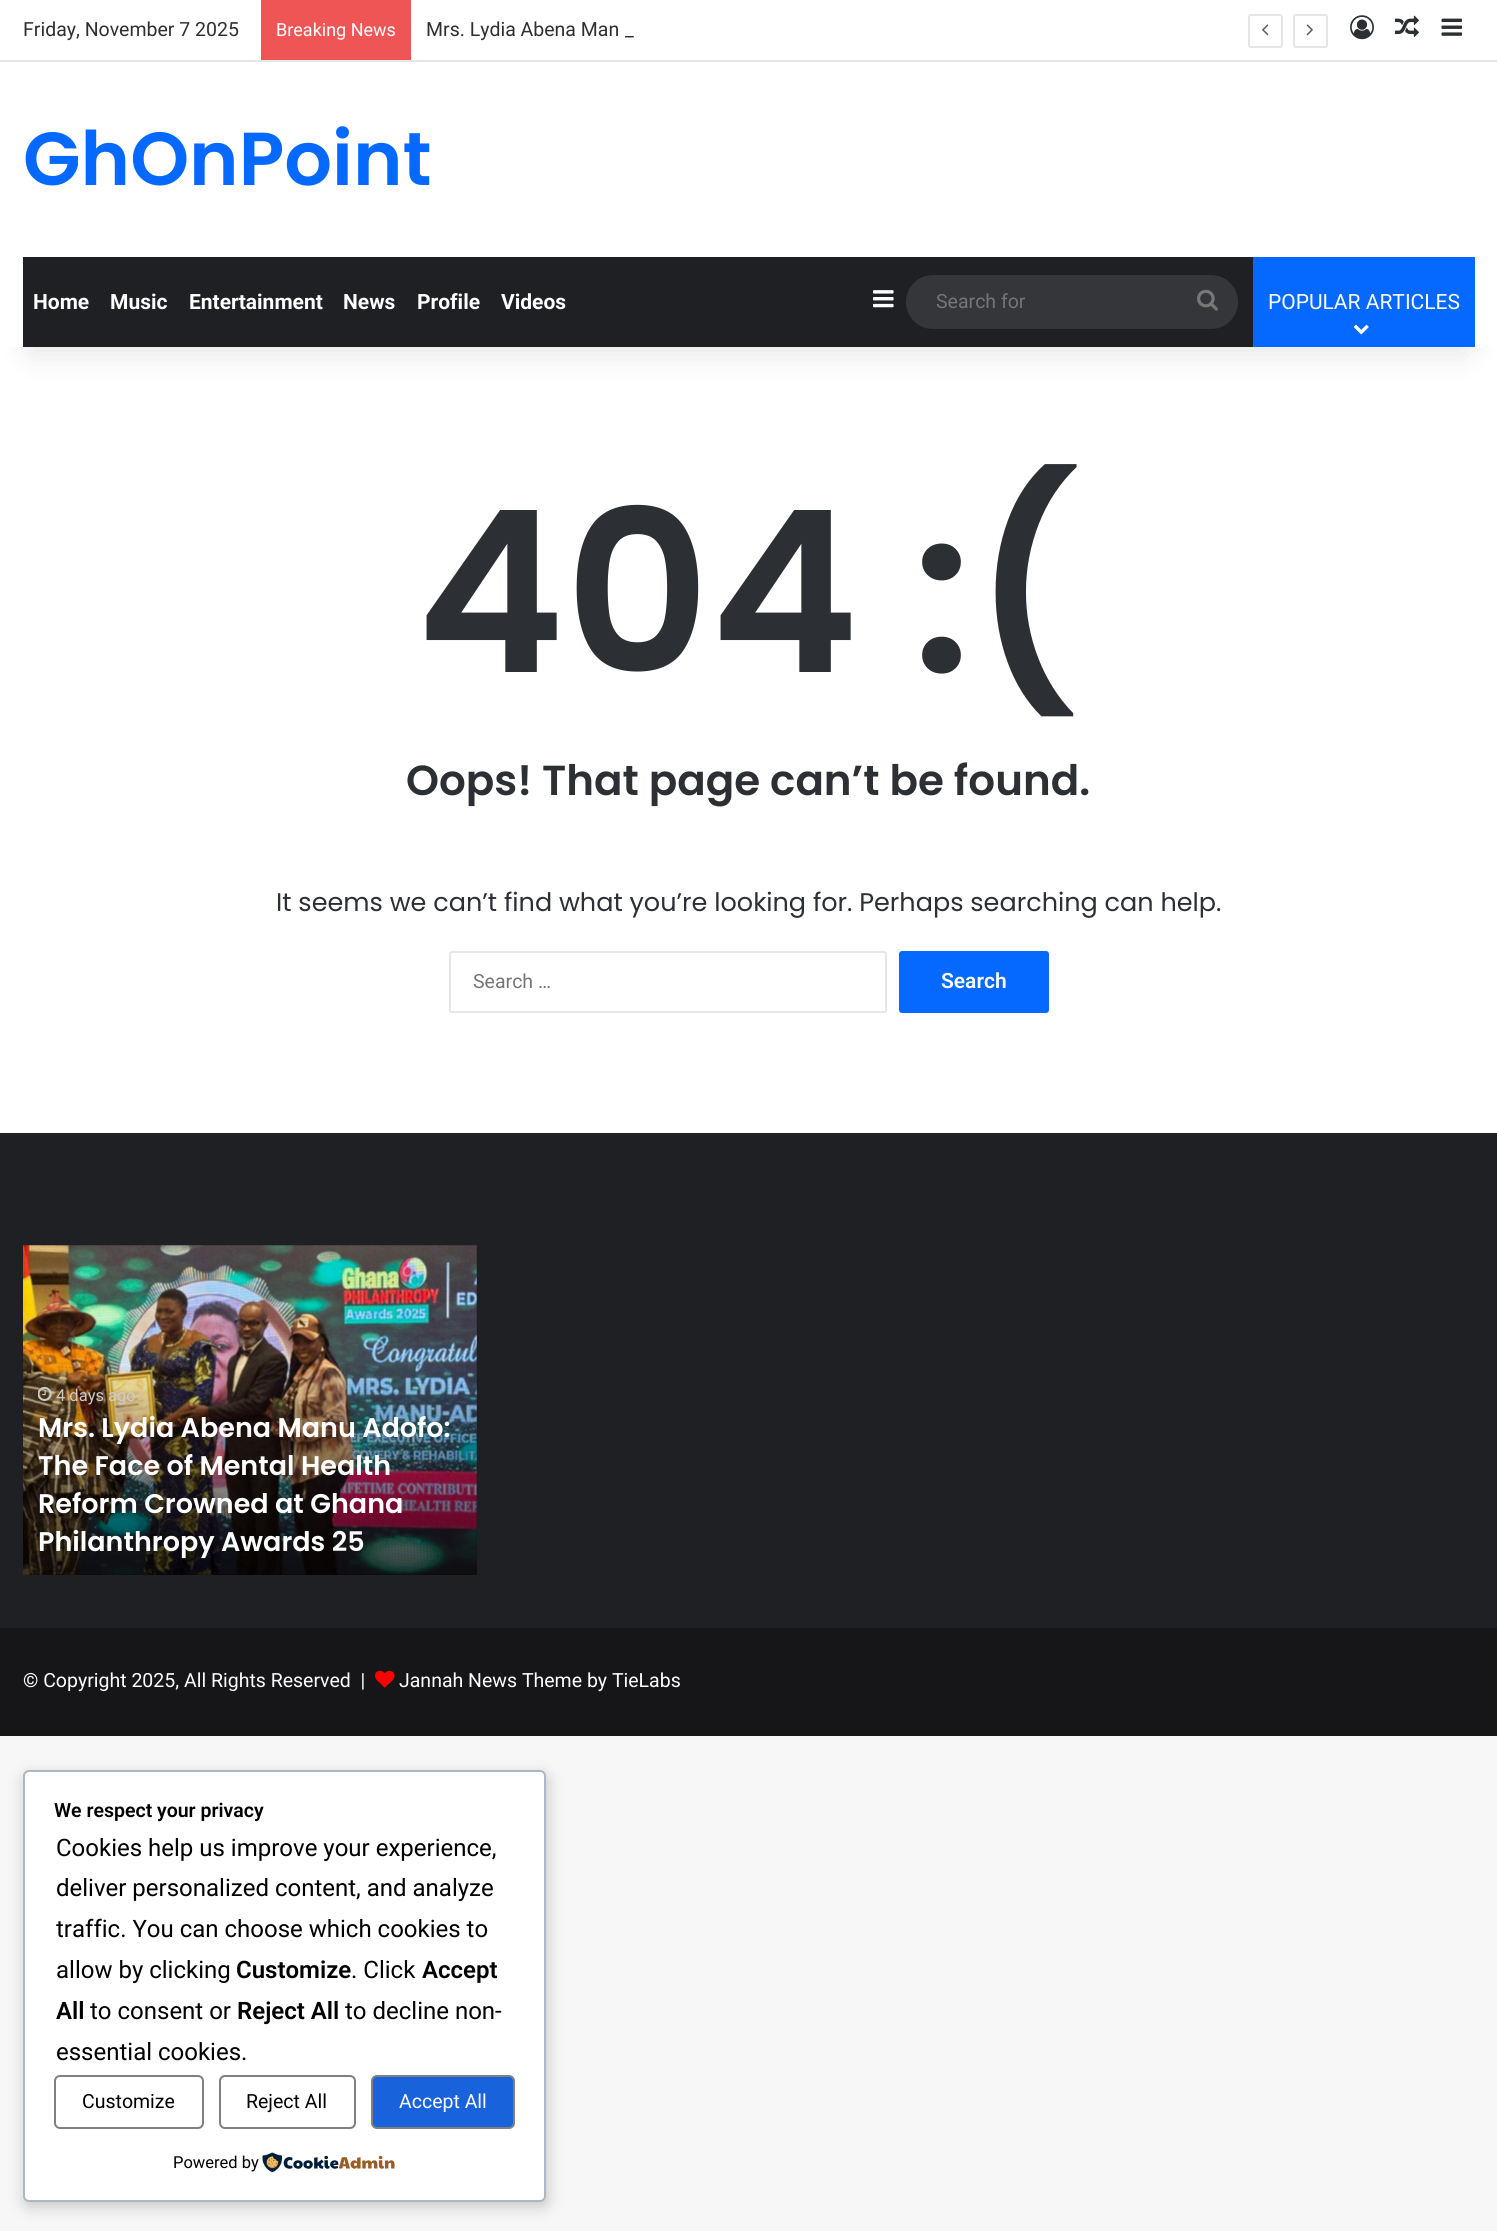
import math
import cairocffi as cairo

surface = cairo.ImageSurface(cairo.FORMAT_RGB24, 1497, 2231)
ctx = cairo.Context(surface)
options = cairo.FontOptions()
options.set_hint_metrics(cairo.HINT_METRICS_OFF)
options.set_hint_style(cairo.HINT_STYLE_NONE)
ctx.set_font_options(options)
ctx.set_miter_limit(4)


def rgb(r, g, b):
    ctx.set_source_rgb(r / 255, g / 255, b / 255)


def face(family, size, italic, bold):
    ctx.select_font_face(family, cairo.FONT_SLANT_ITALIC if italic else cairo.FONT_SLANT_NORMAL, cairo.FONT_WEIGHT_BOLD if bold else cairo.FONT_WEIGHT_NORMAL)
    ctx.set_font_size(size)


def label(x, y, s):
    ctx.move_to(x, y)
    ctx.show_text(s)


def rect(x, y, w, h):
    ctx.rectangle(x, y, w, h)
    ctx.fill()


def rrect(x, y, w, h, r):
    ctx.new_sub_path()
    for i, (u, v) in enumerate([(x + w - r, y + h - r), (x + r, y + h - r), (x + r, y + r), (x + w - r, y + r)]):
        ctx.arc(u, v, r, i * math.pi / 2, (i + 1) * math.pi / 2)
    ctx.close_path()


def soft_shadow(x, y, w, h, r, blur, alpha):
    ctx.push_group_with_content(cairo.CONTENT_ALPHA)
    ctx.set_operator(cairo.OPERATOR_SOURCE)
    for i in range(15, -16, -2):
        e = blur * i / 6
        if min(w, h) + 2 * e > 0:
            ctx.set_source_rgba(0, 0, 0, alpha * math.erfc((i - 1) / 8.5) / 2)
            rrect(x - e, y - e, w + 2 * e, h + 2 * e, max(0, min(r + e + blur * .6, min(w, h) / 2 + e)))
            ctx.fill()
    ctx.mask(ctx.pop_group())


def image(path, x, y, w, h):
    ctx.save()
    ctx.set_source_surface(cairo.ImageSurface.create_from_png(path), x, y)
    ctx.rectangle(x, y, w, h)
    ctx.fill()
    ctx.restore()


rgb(247, 247, 247)
ctx.paint()
rgb(255, 255, 255)
rect(0, 347, 1497, 786)
rgb(0, 0, 0)
soft_shadow(30, 68, 1437, 286, 0, 15, 0.1)
rgb(255, 255, 255)
rect(0, 0, 1497, 347)
rgb(230, 230, 230)
rect(0, 60, 1497, 2)
face('Roboto', 19.5, 0, 0)
rgb(44, 47, 52)
label(23, 36, 'Friday, November 7 2025')
rgb(240, 85, 85)
rect(261, 0, 150, 60)
face('Roboto', 18, 0, 0)
rgb(255, 255, 255)
label(276, 36, 'Breaking News')
face('Roboto', 19.5, 0, 0)
rgb(44, 47, 52)
label(426, 36, 'Mrs. Lydia Abena Man')
label(625, 36, '_')
rrect(1249, 15, 33, 32, 2)
rgb(230, 230, 230)
ctx.stroke()
image('image0.png', 1262, 24, 7, 12)
rrect(1294, 15, 33, 32, 2)
ctx.stroke()
image('image1.png', 1306, 24, 7, 12)
image('image2.png', 1350, 15, 24, 25)
image('image3.png', 1395, 15, 24, 22)
image('image4.png', 1441, 18, 22, 18)
face('Poppins SemiBold', 75, 0, 0)
rgb(6, 105, 255)
label(23, 185, 'GhOnPoint')
rgb(31, 32, 36)
rect(23, 257, 1230, 90)
face('Roboto', 21, 0, 1)
rgb(255, 255, 255)
label(33, 309, 'Home')
label(110, 309, 'Music')
label(189, 309, 'Entertainment')
label(343, 309, 'News')
label(417, 309, 'Profile')
label(501, 309, 'Videos')
image('image5.png', 873, 290, 21, 18)
rgb(53, 54, 58)
rrect(906, 275, 332, 54, 27)
ctx.fill()
face('Roboto', 19.5, 0, 0)
rgb(117, 117, 117)
label(936, 308, 'Search for')
image('image6.png', 1197, 289, 21, 22)
rgb(6, 105, 255)
rect(1253, 257, 222, 90)
face('Roboto', 21, 0, 0)
rgb(255, 255, 255)
label(1268, 309, 'POPULAR ARTICLES')
image('image7.png', 1353, 324, 16, 11)
face('Poppins SemiBold', 225, 0, 0)
rgb(44, 47, 52)
label(416, 672, '404 :(')
face('Poppins SemiBold', 42, 0, 0)
label(406, 795, 'Oops! That page can’t be found.')
face('Poppins', 25.5, 0, 0)
label(276, 911, 'It seems we can’t find what you’re looking for. Perhaps searching can help.')
rrect(450, 952, 436, 60, 2)
rgb(230, 230, 230)
ctx.stroke()
face('Roboto', 19.5, 0, 0)
rgb(117, 117, 117)
label(473, 988, 'Search …')
rgb(6, 105, 255)
rrect(899, 951, 150, 62, 3)
ctx.fill()
face('Roboto SemiBold', 21, 0, 0)
rgb(255, 255, 255)
label(941, 988, 'Search')
rgb(31, 32, 36)
rect(0, 1133, 1497, 495)
image('image8.png', 23, 1245, 454, 330)
gradient = cairo.LinearGradient(250, 1361, 250, 1575)
gradient.add_color_stop_rgba(0, 0, 0, 0, 0)
gradient.add_color_stop_rgba(1, 0, 0, 0, 0.74)
ctx.set_source(gradient)
rect(23, 1367, 454, 208)
image('image9.png', 38, 1386, 14, 15)
face('Roboto', 16.5, 0, 0)
rgb(203, 203, 203)
label(56, 1401, '4 days ago')
face('Poppins SemiBold', 27, 0, 0)
rgb(255, 255, 255)
label(38, 1437, 'Mrs. Lydia Abena Manu Adofo:')
label(38, 1475, 'The Face of Mental Health')
label(38, 1513, 'Reform Crowned at Ghana')
label(38, 1551, 'Philanthropy Awards 25')
rgb(22, 22, 25)
rect(0, 1628, 1497, 108)
face('Roboto', 19.5, 0, 0)
rgb(255, 255, 255)
label(23, 1687, '© Copyright 2025, All Rights Reserved  |')
image('image10.png', 375, 1670, 20, 18)
label(399, 1687, 'Jannah News Theme by TieLabs')
rgb(0, 0, 0)
soft_shadow(24, 1775, 524, 432, 6, 7.5, 0.2)
rgb(255, 255, 255)
rrect(24, 1771, 521, 430, 5)
ctx.fill_preserve()
rgb(171, 184, 195)
ctx.stroke()
face('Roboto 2 SemiBold', 19.5, 0, 0)
rgb(0, 0, 0)
label(54, 1817, 'We respect your privacy')
face('Roboto', 24, 0, 0)
label(56, 1856, 'Cookies help us improve your experience,')
label(56, 1896, 'deliver personalized content, and analyze')
label(56, 1937, 'traffic. You can choose which cookies to')
label(56, 1978, 'allow by clicking')
face('Roboto SemiBold', 24, 0, 0)
label(236, 1978, 'Customize')
face('Roboto', 24, 0, 0)
label(351, 1978, '. Click')
face('Roboto SemiBold', 24, 0, 0)
label(422, 1978, 'Accept')
label(56, 2019, 'All')
face('Roboto', 24, 0, 0)
label(90, 2019, 'to consent or')
face('Roboto SemiBold', 24, 0, 0)
label(237, 2019, 'Reject All')
face('Roboto', 24, 0, 0)
label(345, 2019, 'to decline non-')
label(56, 2060, 'essential cookies.')
rrect(55, 2076, 148, 52, 5)
rgb(128, 128, 128)
ctx.stroke()
face('Roboto', 19.5, 0, 0)
rgb(0, 0, 0)
label(82, 2108, 'Customize')
rrect(220, 2076, 135, 52, 5)
rgb(128, 128, 128)
ctx.stroke()
rgb(0, 0, 0)
label(246, 2108, 'Reject All')
rgb(24, 99, 220)
rrect(372, 2076, 142, 52, 5)
ctx.fill_preserve()
rgb(128, 128, 128)
ctx.stroke()
rgb(255, 255, 255)
label(399, 2108, 'Accept All')
face('Roboto', 16.5, 0, 0)
rgb(0, 0, 0)
label(173, 2168, 'Powered by')
image('image11.png', 262, 2152, 133, 21)
surface.write_to_png('render.png')
